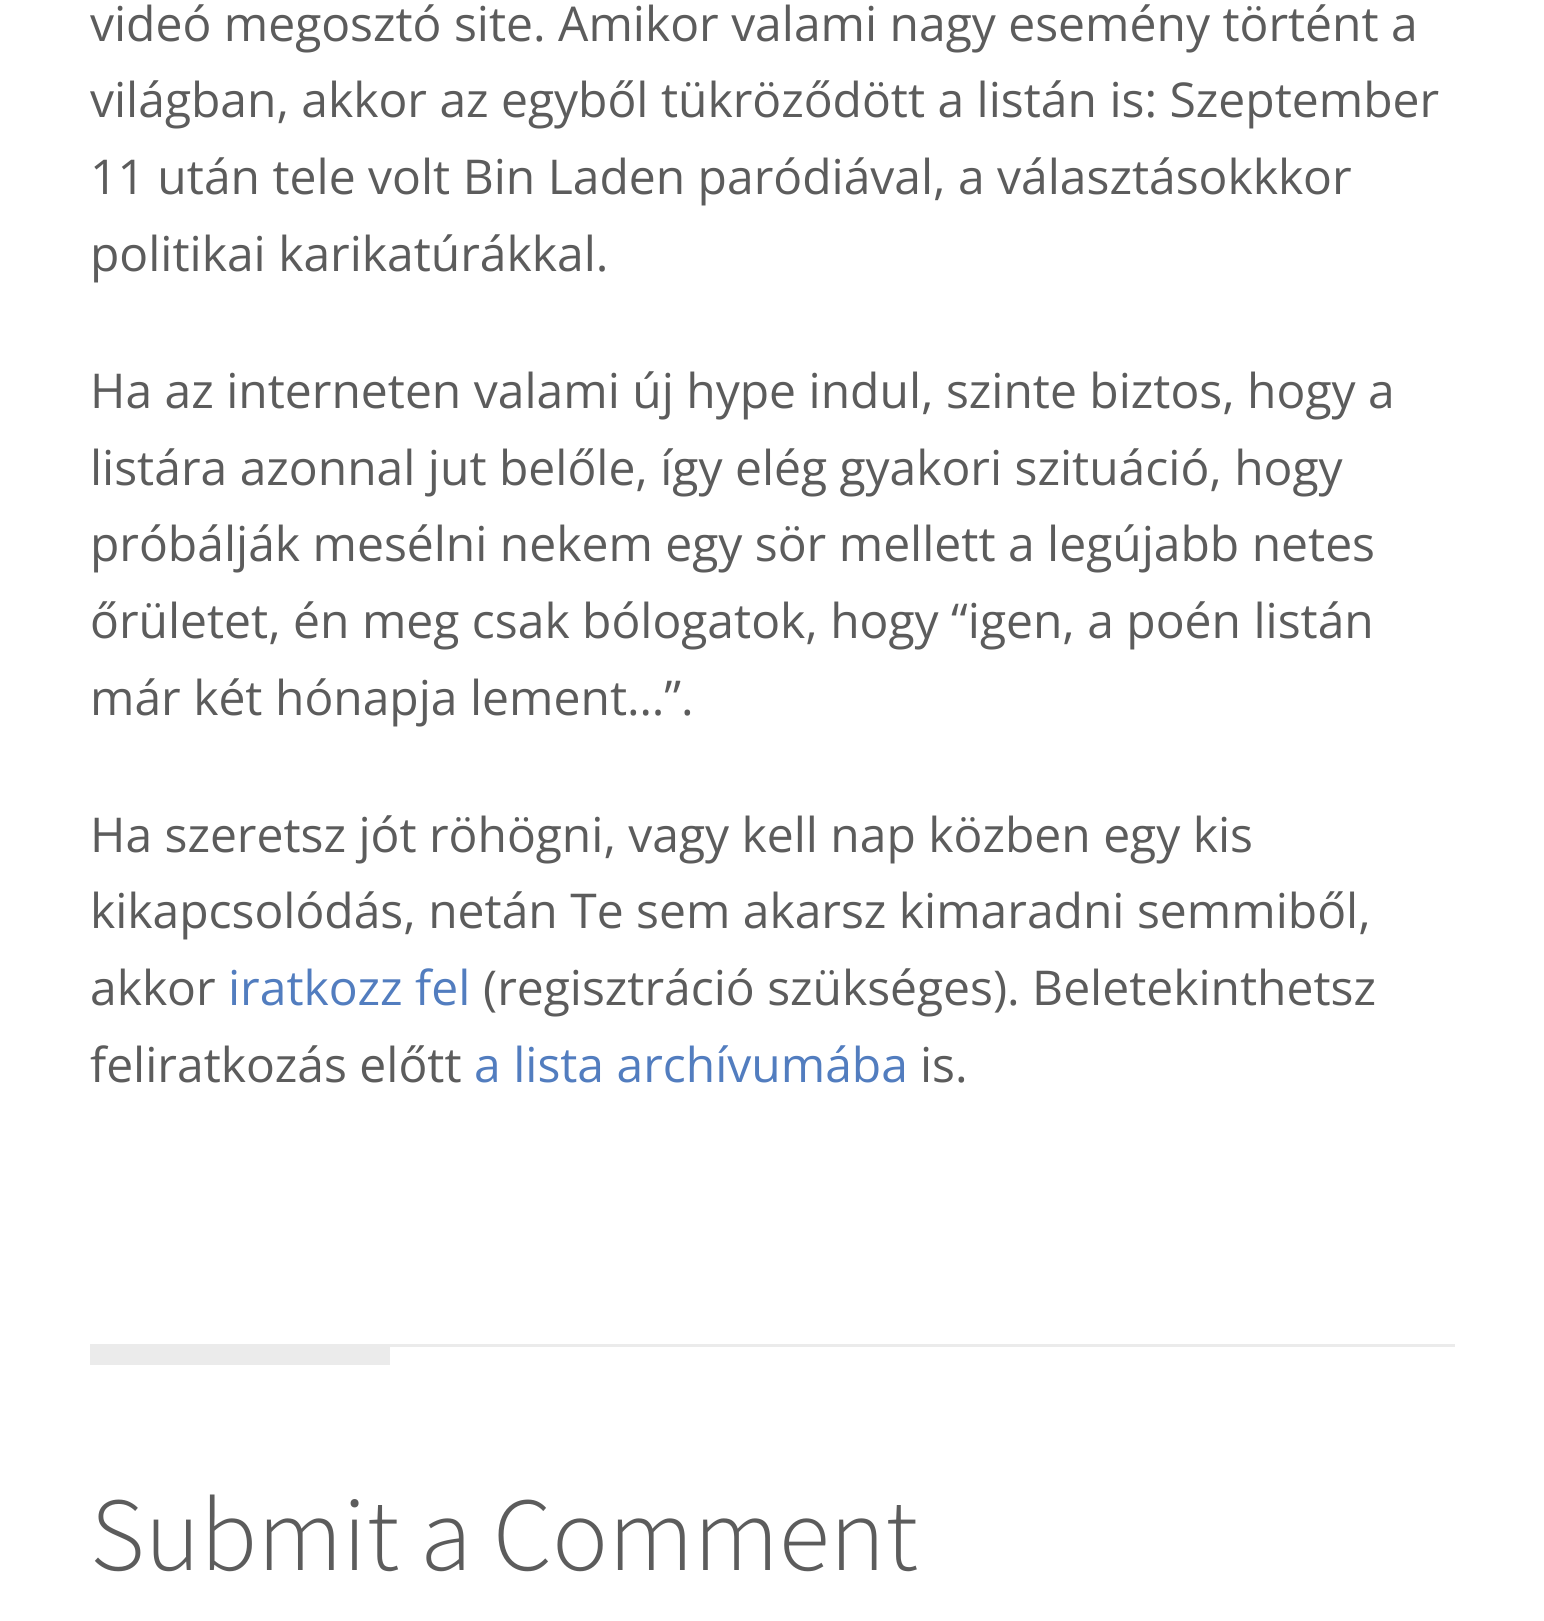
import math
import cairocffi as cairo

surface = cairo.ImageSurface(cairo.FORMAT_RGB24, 1544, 1621)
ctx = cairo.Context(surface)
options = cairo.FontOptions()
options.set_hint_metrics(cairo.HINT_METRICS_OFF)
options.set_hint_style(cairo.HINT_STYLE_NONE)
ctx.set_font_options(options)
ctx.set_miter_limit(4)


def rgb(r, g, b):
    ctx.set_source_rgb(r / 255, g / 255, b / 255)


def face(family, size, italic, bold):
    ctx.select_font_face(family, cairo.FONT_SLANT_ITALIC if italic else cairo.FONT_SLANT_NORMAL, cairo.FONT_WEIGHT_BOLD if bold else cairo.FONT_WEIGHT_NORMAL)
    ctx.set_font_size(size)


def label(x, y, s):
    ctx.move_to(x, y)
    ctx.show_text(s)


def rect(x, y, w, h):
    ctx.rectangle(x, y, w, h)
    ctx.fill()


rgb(255, 255, 255)
ctx.paint()
face('Open Sans', 48, 0, 0)
rgb(92, 92, 92)
label(90, 41, 'videó megosztó site. Amikor valami nagy esemény történt a')
label(90, 117, 'világban, akkor az egyből tükröződött a listán is: Szeptember')
label(90, 194, '11 után tele volt Bin Laden paródiával, a választásokkkor')
label(90, 271, 'politikai karikatúrákkal.')
label(90, 408, 'Ha az interneten valami új hype indul, szinte biztos, hogy a')
label(90, 485, 'listára azonnal jut belőle, így elég gyakori szituáció, hogy')
label(90, 561, 'próbálják mesélni nekem egy sör mellett a legújabb netes')
label(90, 638, 'őrületet, én meg csak bólogatok, hogy “igen, a poén listán')
label(90, 715, 'már két hónapja lement…”.')
label(90, 852, 'Ha szeretsz jót röhögni, vagy kell nap közben egy kis')
label(90, 928, 'kikapcsolódás, netán Te sem akarsz kimaradni semmiből,')
label(90, 1005, 'akkor')
rgb(82, 125, 191)
label(228, 1005, 'iratkozz fel')
rgb(92, 92, 92)
label(483, 1005, '(regisztráció szükséges). Beletekinthetsz')
label(90, 1082, 'feliratkozás előtt')
rgb(82, 125, 191)
label(474, 1082, 'a lista archívumába')
rgb(92, 92, 92)
label(920, 1082, 'is.')
rgb(235, 235, 235)
rect(90, 1344, 1365, 3)
rect(90, 1347, 300, 18)
face('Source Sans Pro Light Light', 105, 0, 0)
rgb(92, 92, 92)
label(90, 1570, 'Submit a Comment')
surface.write_to_png('render.png')
